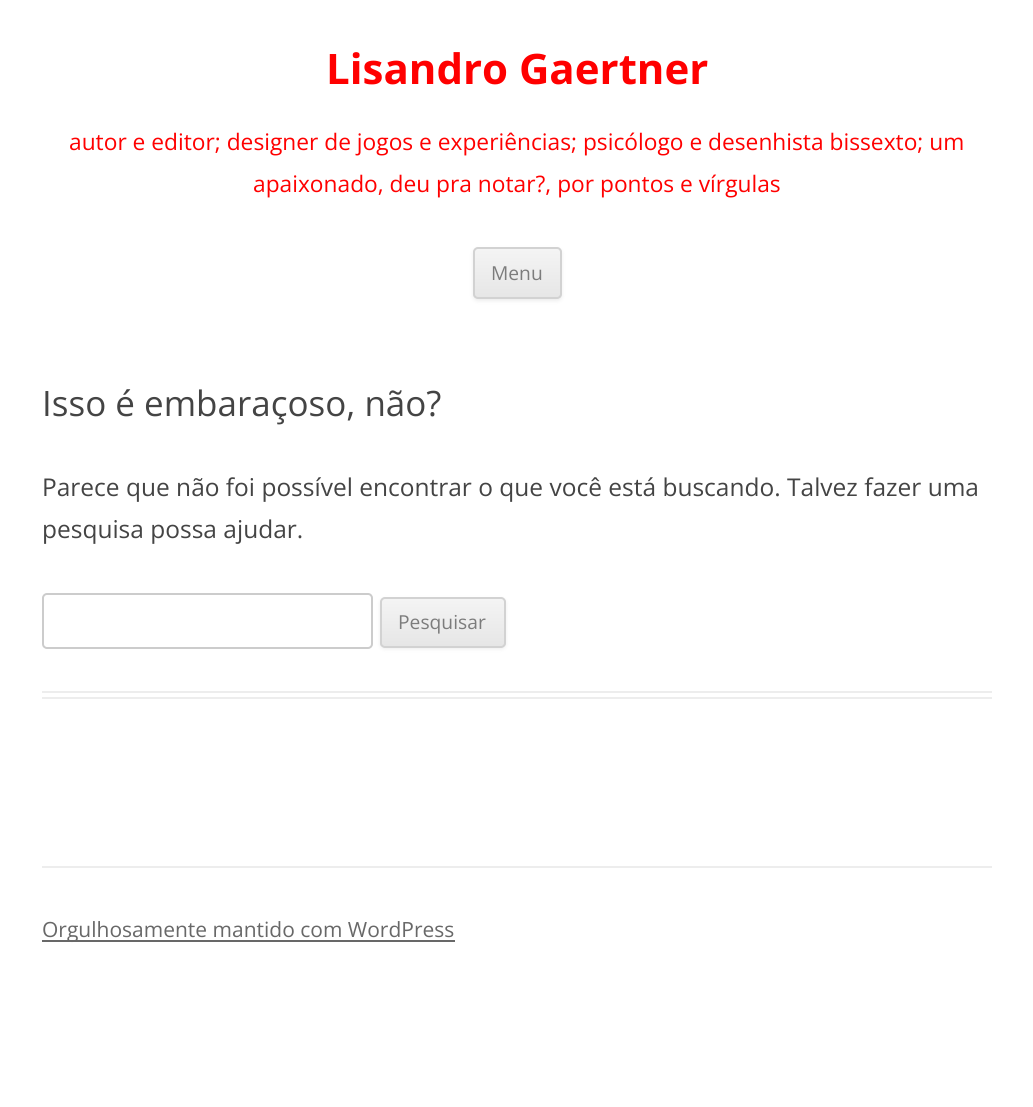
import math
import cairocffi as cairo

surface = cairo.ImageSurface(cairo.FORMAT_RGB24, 1033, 1107)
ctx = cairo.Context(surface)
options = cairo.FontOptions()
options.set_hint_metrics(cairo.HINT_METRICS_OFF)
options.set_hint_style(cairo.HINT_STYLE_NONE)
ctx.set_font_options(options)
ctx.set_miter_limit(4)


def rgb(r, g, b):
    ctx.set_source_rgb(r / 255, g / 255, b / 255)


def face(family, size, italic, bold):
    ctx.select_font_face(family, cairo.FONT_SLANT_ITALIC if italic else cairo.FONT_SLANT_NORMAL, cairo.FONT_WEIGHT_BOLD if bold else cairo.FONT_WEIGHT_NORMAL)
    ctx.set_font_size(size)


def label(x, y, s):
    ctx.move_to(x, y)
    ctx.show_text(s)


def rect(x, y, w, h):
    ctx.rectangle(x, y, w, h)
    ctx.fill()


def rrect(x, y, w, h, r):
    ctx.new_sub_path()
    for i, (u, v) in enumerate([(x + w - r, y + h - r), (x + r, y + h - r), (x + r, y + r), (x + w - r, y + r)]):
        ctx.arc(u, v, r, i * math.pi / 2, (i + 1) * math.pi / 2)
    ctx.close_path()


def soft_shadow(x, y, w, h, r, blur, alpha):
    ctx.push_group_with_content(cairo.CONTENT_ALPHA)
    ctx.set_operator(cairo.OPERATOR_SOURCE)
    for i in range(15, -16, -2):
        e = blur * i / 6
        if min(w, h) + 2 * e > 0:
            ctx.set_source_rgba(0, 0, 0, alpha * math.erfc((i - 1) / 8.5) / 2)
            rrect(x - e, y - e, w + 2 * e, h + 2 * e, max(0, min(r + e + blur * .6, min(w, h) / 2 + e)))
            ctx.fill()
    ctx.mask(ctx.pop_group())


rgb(255, 255, 255)
ctx.paint()
face('Open Sans', 42, 0, 1)
rgb(255, 0, 0)
label(326, 84, 'Lisandro Gaertner')
face('Open Sans', 22.75, 0, 0)
label(69, 150, 'autor e editor; designer de jogos e experiências; psicólogo e desenhista bissexto; um')
label(253, 192, 'apaixonado, deu pra notar?, por pontos e vírgulas')
rgb(64, 64, 64)
soft_shadow(473, 249, 89, 52, 5, 2, 0.1)
ctx.save()
rrect(473, 247, 89, 52, 5)
ctx.clip()
gradient = cairo.LinearGradient(517, 249, 517, 298)
gradient.add_color_stop_rgba(0, 0.957, 0.957, 0.957, 1)
gradient.add_color_stop_rgba(1, 0.902, 0.902, 0.902, 1)
ctx.set_source(gradient)
rect(473, 249, 89, 49)
ctx.restore()
rrect(474, 248, 87, 50, 4)
rgb(210, 210, 210)
ctx.stroke()
face('Open Sans', 19.25, 0, 0)
rgb(124, 124, 124)
label(491, 280, 'Menu')
rgb(237, 237, 237)
rect(42, 691, 950, 2)
rect(42, 697, 950, 2)
face('Open Sans', 35, 0, 0)
rgb(68, 68, 68)
label(42, 416, 'Isso é embaraçoso, não?')
face('Open Sans', 24.5, 0, 0)
label(42, 496, 'Parece que não foi possível encontrar o que você está buscando. Talvez fazer uma')
label(42, 538, 'pesquisa possa ajudar.')
rrect(43, 594, 329, 54, 4)
rgb(204, 204, 204)
ctx.stroke()
rgb(64, 64, 64)
soft_shadow(380, 599, 126, 50, 5, 2, 0.1)
ctx.save()
rrect(380, 597, 126, 51, 5)
ctx.clip()
gradient = cairo.LinearGradient(443, 599, 443, 646)
gradient.add_color_stop_rgba(0, 0.957, 0.957, 0.957, 1)
gradient.add_color_stop_rgba(1, 0.902, 0.902, 0.902, 1)
ctx.set_source(gradient)
rect(380, 599, 126, 47)
ctx.restore()
rrect(381, 598, 124, 49, 4)
rgb(210, 210, 210)
ctx.stroke()
face('Open Sans', 19.25, 0, 0)
rgb(124, 124, 124)
label(398, 629, 'Pesquisar')
rgb(237, 237, 237)
rect(42, 866, 950, 2)
rgb(104, 104, 104)
rect(42, 940, 413, 2)
face('Open Sans', 21, 0, 0)
label(42, 937, 'Orgulhosamente mantido com WordPress')
surface.write_to_png('render.png')
